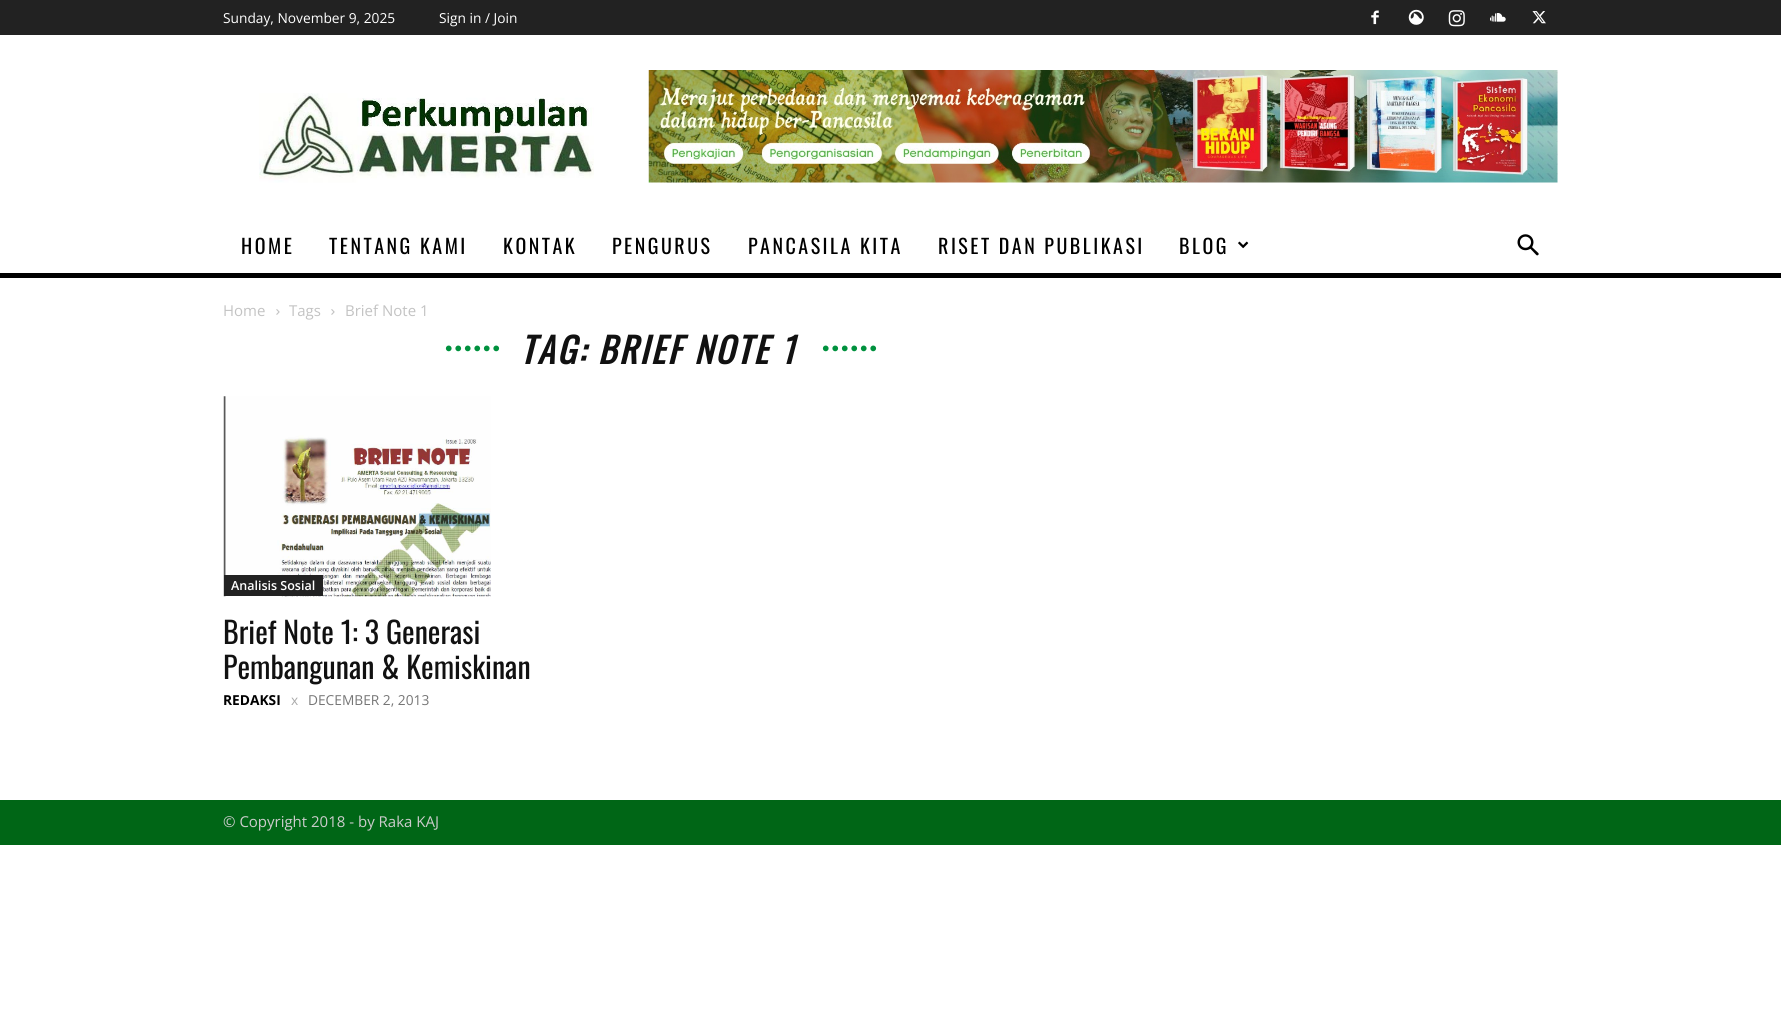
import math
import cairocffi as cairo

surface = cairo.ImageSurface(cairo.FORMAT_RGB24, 1781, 1025)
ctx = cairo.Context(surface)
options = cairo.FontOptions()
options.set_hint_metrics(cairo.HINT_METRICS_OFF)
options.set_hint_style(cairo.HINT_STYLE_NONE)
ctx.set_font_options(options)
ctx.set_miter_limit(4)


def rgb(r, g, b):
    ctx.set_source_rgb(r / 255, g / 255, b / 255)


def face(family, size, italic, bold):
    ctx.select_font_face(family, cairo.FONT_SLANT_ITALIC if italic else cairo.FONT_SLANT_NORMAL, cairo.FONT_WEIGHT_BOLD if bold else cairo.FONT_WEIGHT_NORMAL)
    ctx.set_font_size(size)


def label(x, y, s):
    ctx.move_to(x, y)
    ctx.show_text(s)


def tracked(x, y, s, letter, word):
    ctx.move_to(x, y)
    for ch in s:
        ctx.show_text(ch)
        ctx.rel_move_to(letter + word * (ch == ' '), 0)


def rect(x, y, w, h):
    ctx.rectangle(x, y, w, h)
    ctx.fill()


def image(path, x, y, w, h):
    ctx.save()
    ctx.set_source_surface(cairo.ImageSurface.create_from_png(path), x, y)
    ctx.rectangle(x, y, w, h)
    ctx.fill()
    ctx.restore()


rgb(255, 255, 255)
ctx.paint()
rgb(34, 34, 34)
rect(0, 0, 1781, 35)
face('Open Sans', 13.75, 0, 0)
rgb(255, 255, 255)
label(223, 23, 'Sunday, November 9, 2025')
label(439, 23, 'Sign in / Join')
image('image0.png', 1371, 10, 8, 15)
image('image1.png', 1408, 9, 16, 16)
image('image2.png', 1448, 10, 17, 17)
image('image3.png', 1490, 13, 16, 9)
image('image4.png', 1532, 11, 14, 13)
image('image5.png', 259, 93, 335, 90)
image('image6.png', 648, 70, 910, 113)
face('Oswald', 20, 0, 0)
rgb(0, 0, 0)
tracked(241, 254, 'HOME', 2.5, 0)
tracked(329, 254, 'TENTANG KAMI', 2.5, 0)
tracked(503, 254, 'KONTAK', 2.5, 0)
tracked(612, 254, 'PENGURUS', 2.5, 0)
tracked(748, 254, 'PANCASILA KITA', 2.5, 0)
tracked(938, 254, 'RISET DAN PUBLIKASI', 2.5, 0)
tracked(1179, 254, 'BLOG', 2.5, 0)
image('image7.png', 1238, 241, 11, 8)
image('image8.png', 1517, 234, 22, 22)
rect(0, 273, 1781, 5)
face('Open Sans', 15, 0, 0)
rgb(195, 195, 195)
label(223, 316, 'Home')
image('image9.png', 276, 309, 4, 6)
label(289, 316, 'Tags')
image('image9.png', 331, 309, 4, 6)
label(345, 316, 'Brief Note 1')
face('Liberation Sans', 20, 1, 1)
rgb(0, 145, 62)
tracked(445, 355, '••••••', 2.5, 0)
face('Oswald', 35, 1, 1)
rgb(17, 17, 17)
tracked(520, 364, 'TAG: BRIEF NOTE 1', 2.5, 0)
face('Liberation Sans', 20, 1, 1)
rgb(0, 145, 62)
tracked(822, 355, '••••••', 2.5, 0)
image('image10.png', 223, 396, 268, 201)
rgb(34, 34, 34)
rect(224, 575, 99, 21)
face('Open Sans SemiBold', 12.5, 0, 0)
rgb(255, 255, 255)
label(231, 590, 'Analisis Sosial')
face('Oswald', 30, 0, 0)
rgb(17, 17, 17)
label(223, 644, 'Brief Note 1: 3 Generasi')
label(223, 679, 'Pembangunan & Kemiskinan')
face('Open Sans', 13.75, 0, 1)
rgb(0, 0, 0)
label(223, 705, 'REDAKSI')
face('Open Sans', 13.75, 0, 0)
rgb(170, 170, 170)
label(291, 705, 'x')
rgb(118, 118, 118)
label(308, 705, 'DECEMBER 2, 2013')
rgb(0, 102, 22)
rect(0, 800, 1781, 45)
face('Open Sans', 15, 0, 0)
rgb(204, 204, 204)
label(223, 827, '© Copyright 2018 - by Raka KAJ')
surface.write_to_png('render.png')
